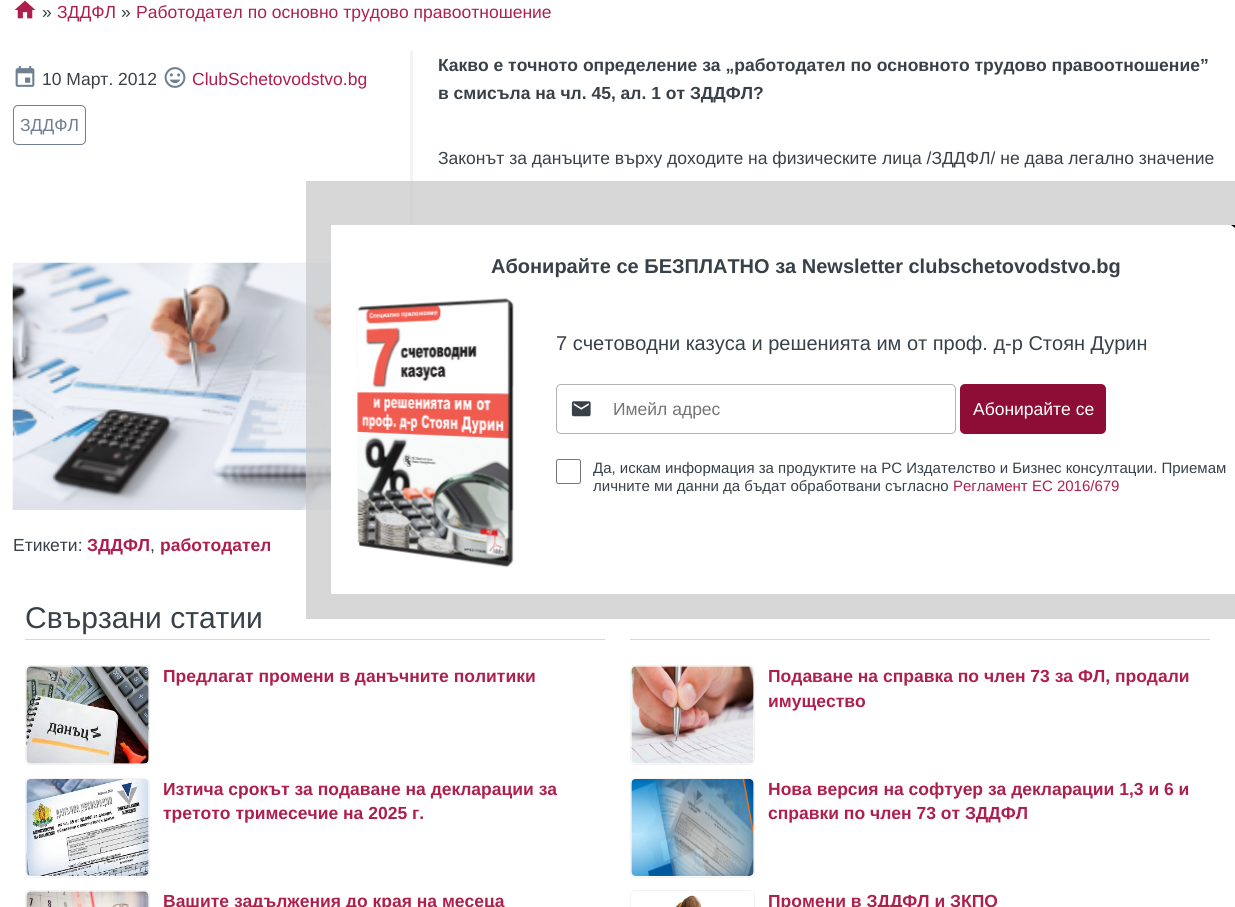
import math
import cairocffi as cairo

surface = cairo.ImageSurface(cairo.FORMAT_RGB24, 1235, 907)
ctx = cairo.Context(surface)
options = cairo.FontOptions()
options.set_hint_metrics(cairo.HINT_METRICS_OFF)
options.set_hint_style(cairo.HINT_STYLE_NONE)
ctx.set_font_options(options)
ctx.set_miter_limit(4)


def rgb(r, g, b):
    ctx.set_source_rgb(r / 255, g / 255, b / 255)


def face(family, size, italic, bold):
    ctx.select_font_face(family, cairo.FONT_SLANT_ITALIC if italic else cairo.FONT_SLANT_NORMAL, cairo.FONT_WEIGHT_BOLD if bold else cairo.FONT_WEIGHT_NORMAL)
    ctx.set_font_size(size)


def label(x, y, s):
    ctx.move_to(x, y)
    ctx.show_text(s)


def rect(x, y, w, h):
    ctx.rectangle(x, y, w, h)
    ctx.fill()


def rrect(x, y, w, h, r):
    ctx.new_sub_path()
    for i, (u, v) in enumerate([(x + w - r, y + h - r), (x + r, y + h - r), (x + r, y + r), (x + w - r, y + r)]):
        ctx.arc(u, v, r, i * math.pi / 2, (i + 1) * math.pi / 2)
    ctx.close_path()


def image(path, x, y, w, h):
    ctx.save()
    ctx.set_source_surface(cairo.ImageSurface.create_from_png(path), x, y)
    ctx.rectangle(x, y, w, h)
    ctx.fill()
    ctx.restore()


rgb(255, 255, 255)
ctx.paint()
image('image0.png', 14, 0, 22, 19)
face('Liberation Sans', 17.5, 0, 0)
rgb(56, 64, 72)
label(42, 18, '»')
rgb(174, 31, 77)
label(57, 18, 'ЗДДФЛ')
rgb(56, 64, 72)
label(121, 18, '»')
rgb(174, 31, 77)
label(136, 18, 'Работодател по основно трудово правоотношение')
rgb(243, 243, 243)
rect(410, 51, 3, 174)
image('image1.png', 15, 66, 20, 21)
rgb(56, 64, 72)
label(42, 85, '10 Март. 2012')
image('image2.png', 164, 67, 22, 21)
rgb(174, 31, 77)
label(192, 85, 'ClubSchetovodstvo.bg')
rrect(13.5, 105.5, 72, 39, 4.5)
rgb(112, 128, 144)
ctx.set_line_width(1)
ctx.stroke()
label(20, 131, 'ЗДДФЛ')
image('image3.png', 12, 262, 319, 248)
rgb(56, 64, 72)
label(13, 551, 'Етикети:')
face('Liberation Sans', 17.5, 0, 1)
rgb(174, 31, 77)
label(87, 551, 'ЗДДФЛ')
face('Liberation Sans', 17.5, 0, 0)
rgb(56, 64, 72)
label(150, 551, ',')
face('Liberation Sans', 17.5, 0, 1)
rgb(174, 31, 77)
label(160, 551, 'работодател')
rgb(56, 64, 72)
label(438, 71, 'Какво е точното определение за „работодател по основното трудово правоотношение”')
label(438, 99, 'в смисъла на чл. 45, ал. 1 от ЗДДФЛ?')
face('Liberation Sans', 17.5, 0, 0)
label(438, 164, 'Законът за данъците върху доходите на физическите лица /ЗДДФЛ/ не дава легално значение')
rgb(212, 216, 221)
rect(25, 639, 580, 1)
face('Liberation Sans', 30, 0, 0)
rgb(56, 64, 72)
label(25, 628, 'Свързани статии')
rrect(25.5, 665.5, 124, 99, 4.5)
rgb(243, 243, 243)
ctx.stroke()
image('image4.png', 26, 666, 123, 98)
face('Liberation Sans', 17.5, 0, 1)
rgb(174, 31, 77)
label(163, 682, 'Предлагат промени в данъчните политики')
rrect(25.5, 778.5, 124, 99, 4.5)
rgb(243, 243, 243)
ctx.stroke()
image('image5.png', 26, 779, 123, 97)
rgb(174, 31, 77)
label(163, 795, 'Изтича срокът за подаване на декларации за')
label(163, 819, 'третото тримесечие на 2025 г.')
rrect(25.5, 890.5, 124, 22, 4.5)
rgb(243, 243, 243)
ctx.stroke()
image('image6.png', 26, 891, 123, 16)
rgb(174, 31, 77)
label(163, 907, 'Вашите задължения до края на месеца')
rgb(212, 216, 221)
rect(630, 639, 580, 1)
rrect(630.5, 665.5, 124, 99, 4.5)
rgb(243, 243, 243)
ctx.stroke()
image('image7.png', 631, 666, 123, 98)
rgb(174, 31, 77)
label(768, 682, 'Подаване на справка по член 73 за ФЛ, продали')
label(768, 707, 'имущество')
rrect(630.5, 778.5, 124, 99, 4.5)
rgb(243, 243, 243)
ctx.stroke()
image('image8.png', 631, 779, 123, 97)
rgb(174, 31, 77)
label(768, 795, 'Нова версия на софтуер за декларации 1,3 и 6 и')
label(768, 819, 'справки по член 73 от ЗДДФЛ')
rrect(630.5, 890.5, 124, 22, 4.5)
rgb(243, 243, 243)
ctx.stroke()
image('image9.png', 674, 894, 28, 13)
rgb(174, 31, 77)
label(768, 907, 'Промени в ЗДДФЛ и ЗКПО')
ctx.set_source_rgba(0.776, 0.776, 0.78, 0.7)
rect(306, 181, 929, 438)
rgb(255, 255, 255)
rect(331, 225, 904, 369)
rgb(0, 0, 0)
ctx.new_path()
ctx.move_to(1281, 225)
ctx.line_to(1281, 262)
ctx.line_to(1231, 225)
ctx.close_path()
ctx.fill()
face('Liberation Sans', 20, 0, 1)
rgb(56, 64, 72)
label(491, 273, 'Абонирайте се БЕЗПЛАТНО за Newsletter clubschetovodstvo.bg')
image('image10.png', 356, 298, 158, 270)
face('Liberation Sans', 20, 0, 0)
label(556, 350, '7 счетоводни казуса и решенията им от проф. д-р Стоян Дурин')
rrect(556.5, 384.5, 399, 49, 4.5)
rgb(178, 178, 178)
ctx.stroke()
image('image11.png', 571, 401, 20, 16)
face('Liberation Sans', 17.5, 0, 0)
rgb(117, 117, 117)
label(613, 415, 'Имейл адрес')
rgb(142, 13, 54)
rrect(960, 384, 146, 50, 5)
ctx.fill()
rgb(255, 255, 255)
label(973, 415, 'Абонирайте се')
rrect(556.5, 459.5, 24, 24, 2)
rgb(118, 118, 118)
ctx.stroke()
face('Liberation Sans', 15, 0, 0)
rgb(56, 64, 72)
label(593, 473, 'Да, искам информация за продуктите на РС Издателство и Бизнес консултации. Приемам')
label(593, 491, 'личните ми данни да бъдат обработвани съгласно')
rgb(174, 31, 77)
label(953, 491, 'Регламент ЕС 2016/679')
surface.write_to_png('render.png')
